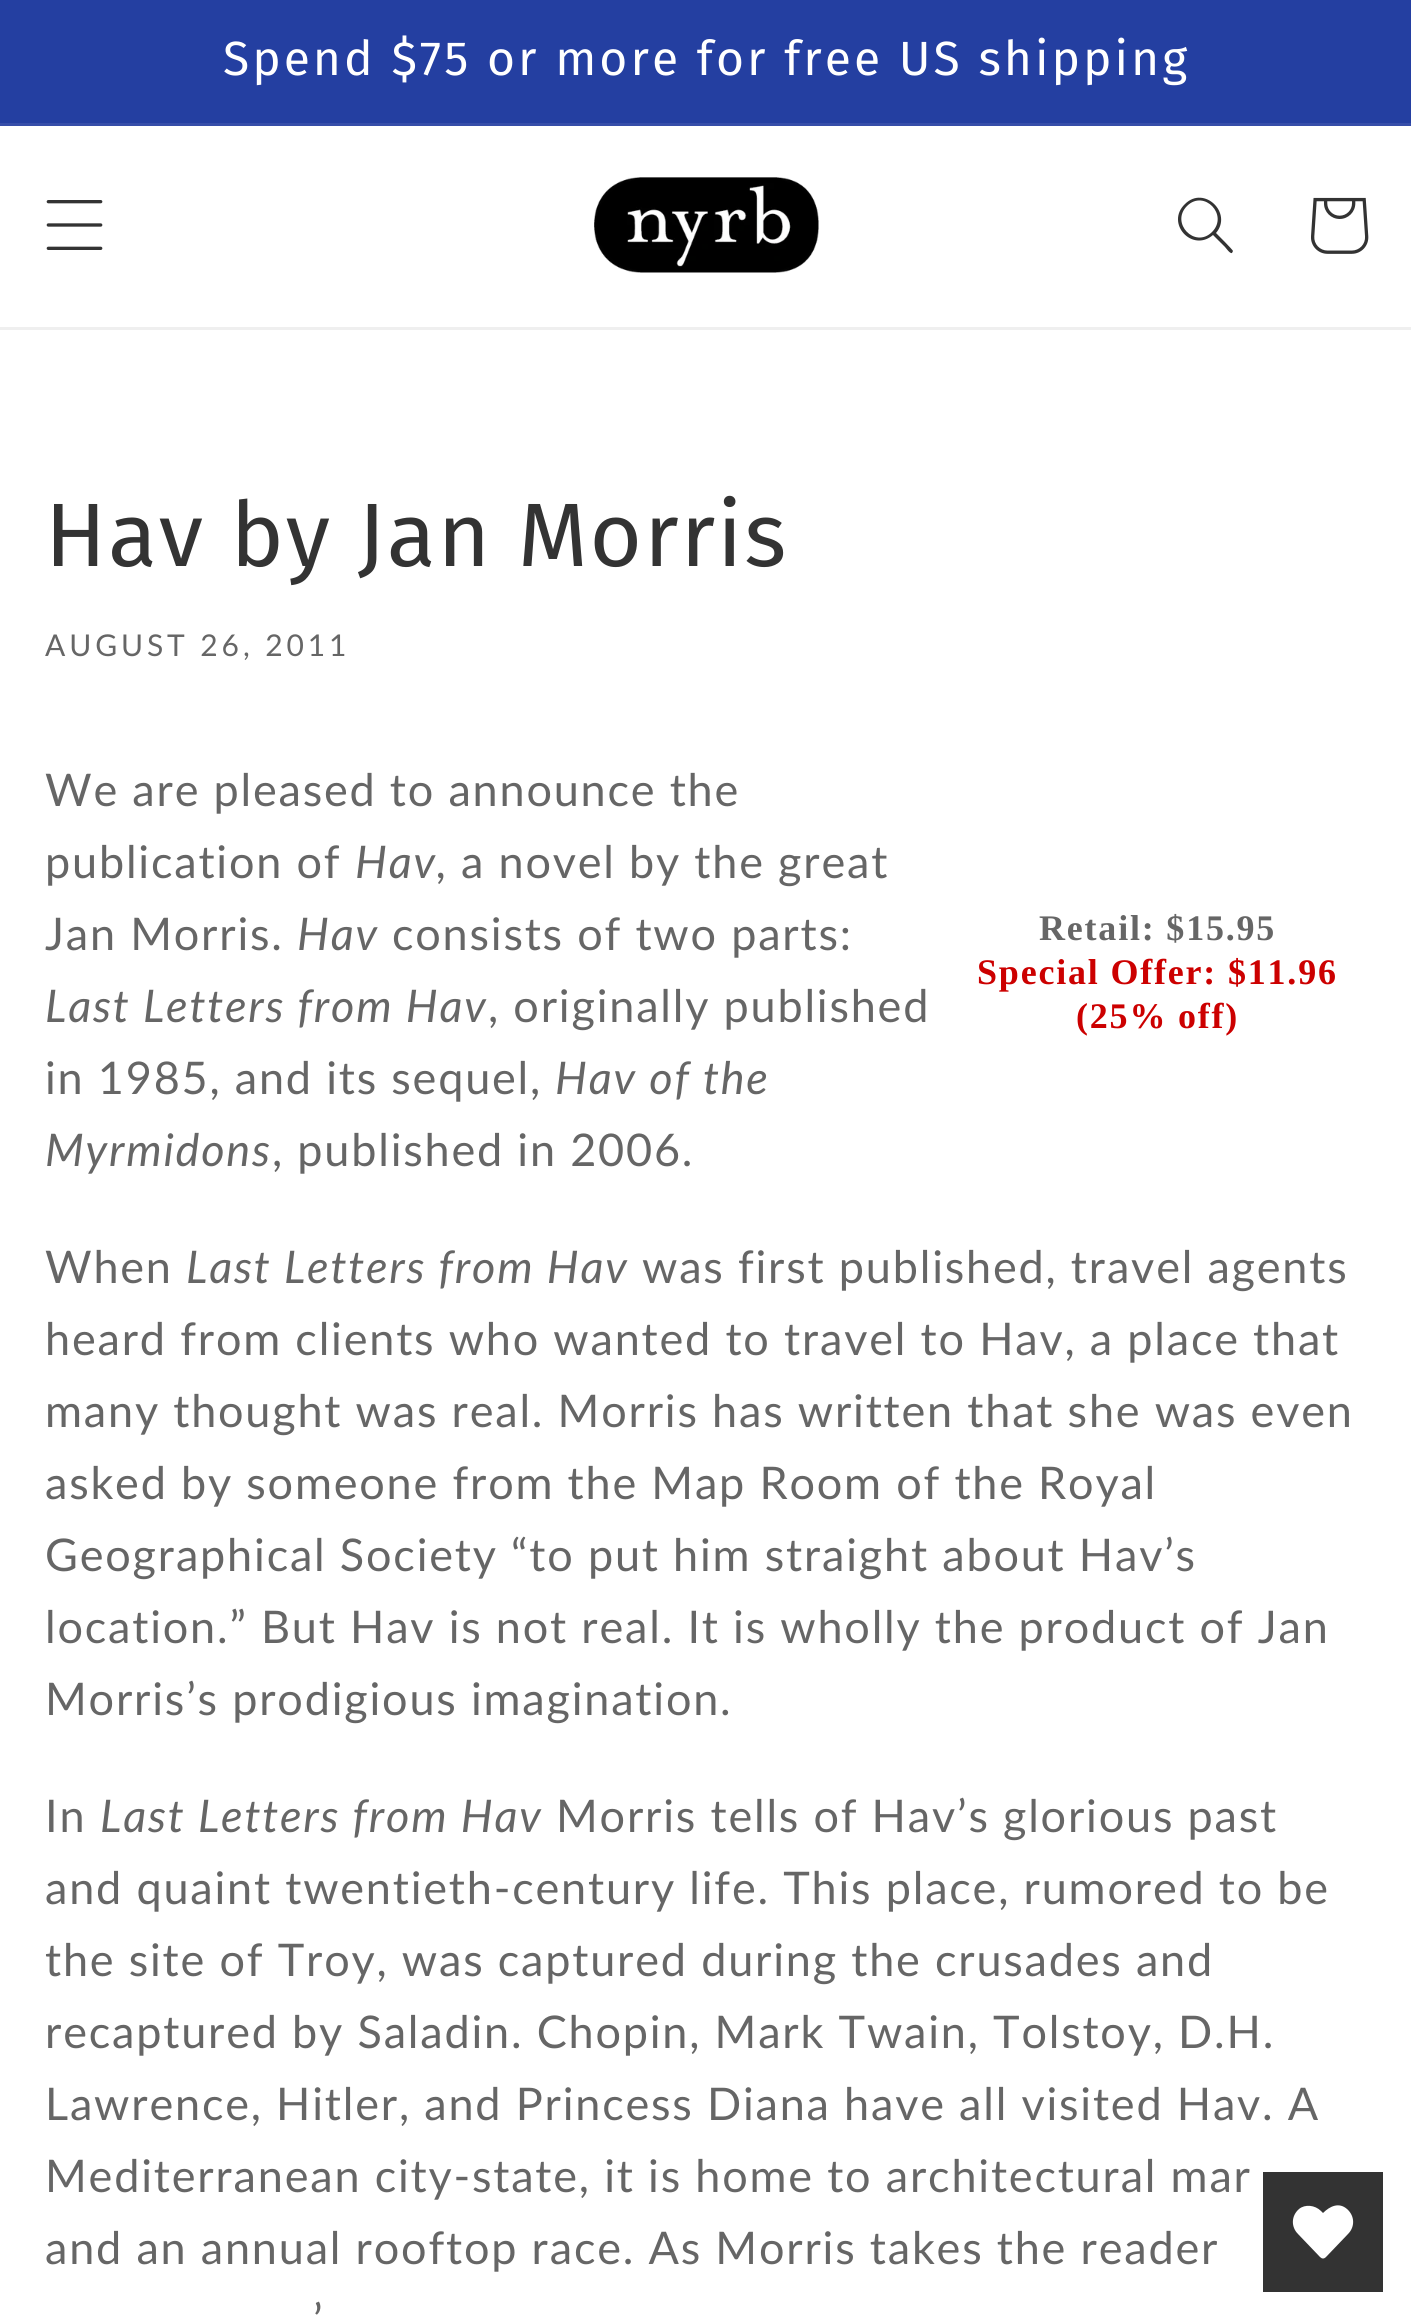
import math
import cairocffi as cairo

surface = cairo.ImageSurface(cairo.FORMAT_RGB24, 1411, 2321)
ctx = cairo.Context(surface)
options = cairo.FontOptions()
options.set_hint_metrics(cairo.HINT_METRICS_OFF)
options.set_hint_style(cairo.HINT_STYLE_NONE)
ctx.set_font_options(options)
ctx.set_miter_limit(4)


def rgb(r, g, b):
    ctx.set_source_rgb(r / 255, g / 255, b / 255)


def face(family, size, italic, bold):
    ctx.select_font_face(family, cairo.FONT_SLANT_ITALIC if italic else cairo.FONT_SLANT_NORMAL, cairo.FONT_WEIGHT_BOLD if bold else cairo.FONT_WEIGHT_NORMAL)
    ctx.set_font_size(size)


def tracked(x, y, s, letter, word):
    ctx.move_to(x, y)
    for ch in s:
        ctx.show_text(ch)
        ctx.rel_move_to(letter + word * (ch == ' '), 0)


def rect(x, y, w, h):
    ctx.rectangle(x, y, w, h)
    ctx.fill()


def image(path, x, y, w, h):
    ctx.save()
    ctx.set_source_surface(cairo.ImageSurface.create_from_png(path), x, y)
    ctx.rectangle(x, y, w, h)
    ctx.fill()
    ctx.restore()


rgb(255, 255, 255)
ctx.paint()
rgb(36, 63, 161)
rect(0, 0, 1411, 123)
rgb(54, 78, 169)
rect(0, 123, 1411, 3)
face('Fira Sans', 48, 0, 0)
rgb(255, 255, 255)
tracked(223, 75, 'Spend $75 or more for free US shipping', 3, 0)
rgb(239, 239, 239)
rect(0, 327, 1411, 3)
image('image0.png', 46, 200, 57, 50)
image('image1.png', 594, 177, 225, 96)
rgb(51, 51, 51)
ctx.set_fill_rule(cairo.FILL_RULE_EVEN_ODD)
ctx.new_path()
ctx.move_to(1212, 232)
ctx.curve_to(1195, 249, 1170, 223, 1187, 206)
ctx.curve_to(1204, 189, 1229, 215, 1212, 232)
ctx.close_path()
ctx.move_to(1213, 235)
ctx.curve_to(1192, 253, 1165, 223, 1185, 204)
ctx.curve_to(1204, 185, 1233, 213, 1216, 233)
ctx.curve_to(1218, 235, 1233, 250, 1233, 251)
ctx.line_to(1232, 253)
ctx.curve_to(1230, 254, 1226, 248, 1225, 247)
ctx.close_path()
ctx.fill()
image('image2.png', 1311, 197, 58, 57)
face('Fira Sans', 90, 0, 0)
tracked(45, 566, 'Hav by Jan Morris', 1.8, 0)
face('Lato', 30, 0, 0)
rgb(102, 102, 102)
tracked(45, 656, 'AUGUST 26, 2011', 3.9, 0)
face('Lato', 45, 0, 0)
tracked(45, 806, 'We are pleased to announce the', 1.8, 0)
tracked(45, 878, 'publication of', 1.8, 0)
face('Lato', 45, 1, 0)
tracked(355, 878, 'Hav,', 1.8, 0)
face('Lato', 45, 0, 0)
tracked(461, 878, 'a novel by the great', 1.8, 0)
tracked(45, 950, 'Jan Morris.', 1.8, 0)
face('Lato', 45, 1, 0)
tracked(297, 950, 'Hav', 1.8, 0)
face('Lato', 45, 0, 0)
tracked(392, 950, 'consists of two parts:', 1.8, 0)
face('Lato', 45, 1, 0)
tracked(45, 1022, 'Last Letters from Hav', 1.8, 0)
face('Lato', 45, 0, 0)
tracked(488, 1022, ', originally published', 1.8, 0)
tracked(45, 1094, 'in 1985, and its sequel,', 1.8, 0)
face('Lato', 45, 1, 0)
tracked(555, 1094, 'Hav of the', 1.8, 0)
tracked(45, 1166, 'Myrmidons', 1.8, 0)
face('Lato', 45, 0, 0)
tracked(272, 1166, ', published in 2006.', 1.8, 0)
face('Liberation Serif', 36, 0, 1)
tracked(1039, 940, 'Retail: $15.95', 1.8, 0)
rgb(204, 0, 0)
tracked(977, 984, 'Special Offer: $11.96', 1.8, 0)
tracked(1076, 1028, '(25% off)', 1.8, 0)
face('Lato', 45, 0, 0)
rgb(102, 102, 102)
tracked(45, 1283, 'When', 1.8, 0)
face('Lato', 45, 1, 0)
tracked(186, 1283, 'Last Letters from Hav', 1.8, 0)
face('Lato', 45, 0, 0)
tracked(642, 1283, 'was first published, travel agents', 1.8, 0)
tracked(45, 1355, 'heard from clients who wanted to travel to Hav, a place that', 1.8, 0)
tracked(45, 1427, 'many thought was real. Morris has written that she was even', 1.8, 0)
tracked(45, 1499, 'asked by someone from the Map Room of the Royal', 1.8, 0)
tracked(45, 1571, 'Geographical Society “to put him straight about Hav’s', 1.8, 0)
tracked(45, 1643, 'location.” But Hav is not real. It is wholly the product of Jan', 1.8, 0)
tracked(45, 1715, 'Morris’s prodigious imagination.', 1.8, 0)
tracked(45, 1832, 'In', 1.8, 0)
face('Lato', 45, 1, 0)
tracked(100, 1832, 'Last Letters from Hav', 1.8, 0)
face('Lato', 45, 0, 0)
tracked(556, 1832, 'Morris tells of Hav’s glorious past', 1.8, 0)
tracked(45, 1904, 'and quaint twentieth-century life. This place, rumored to be', 1.8, 0)
tracked(45, 1976, 'the site of Troy, was captured during the crusades and', 1.8, 0)
tracked(45, 2048, 'recaptured by Saladin. Chopin, Mark Twain, Tolstoy, D.H.', 1.8, 0)
tracked(45, 2120, 'Lawrence, Hitler, and Princess Diana have all visited Hav. A', 1.8, 0)
tracked(45, 2192, 'Mediterranean city-state, it is home to architectural mar', 1.8, 0)
tracked(45, 2264, 'and an annual rooftop race. As Morris takes the reader', 1.8, 0)
tracked(313, 2336, '’', 1.8, 0)
rgb(51, 51, 51)
rect(1263, 2172, 120, 120)
rgb(255, 255, 255)
ctx.set_fill_rule(cairo.FILL_RULE_WINDING)
ctx.new_path()
ctx.move_to(1347, 2209)
ctx.curve_to(1339, 2202, 1330, 2206, 1323, 2213)
ctx.line_to(1321, 2211)
ctx.curve_to(1315, 2205, 1305, 2204, 1299, 2209)
ctx.curve_to(1291, 2216, 1291, 2227, 1298, 2234)
ctx.line_to(1320, 2257)
ctx.curve_to(1322, 2259, 1324, 2259, 1326, 2257)
ctx.line_to(1348, 2234)
ctx.curve_to(1355, 2227, 1355, 2216, 1347, 2209)
ctx.close_path()
ctx.fill()
surface.write_to_png('render.png')
